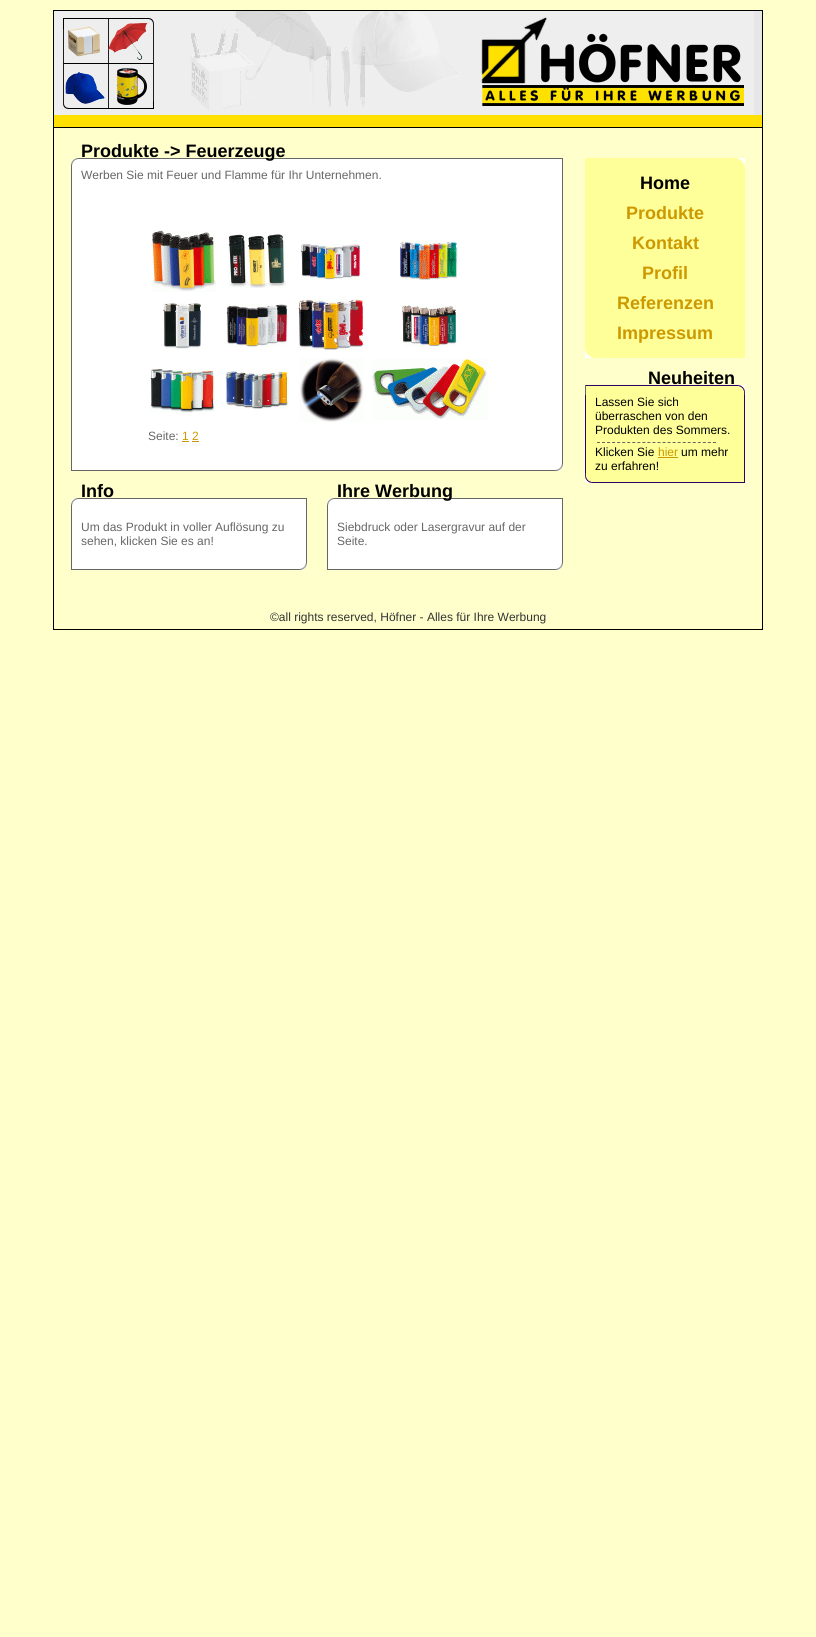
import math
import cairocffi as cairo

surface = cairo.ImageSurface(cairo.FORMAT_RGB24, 816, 1637)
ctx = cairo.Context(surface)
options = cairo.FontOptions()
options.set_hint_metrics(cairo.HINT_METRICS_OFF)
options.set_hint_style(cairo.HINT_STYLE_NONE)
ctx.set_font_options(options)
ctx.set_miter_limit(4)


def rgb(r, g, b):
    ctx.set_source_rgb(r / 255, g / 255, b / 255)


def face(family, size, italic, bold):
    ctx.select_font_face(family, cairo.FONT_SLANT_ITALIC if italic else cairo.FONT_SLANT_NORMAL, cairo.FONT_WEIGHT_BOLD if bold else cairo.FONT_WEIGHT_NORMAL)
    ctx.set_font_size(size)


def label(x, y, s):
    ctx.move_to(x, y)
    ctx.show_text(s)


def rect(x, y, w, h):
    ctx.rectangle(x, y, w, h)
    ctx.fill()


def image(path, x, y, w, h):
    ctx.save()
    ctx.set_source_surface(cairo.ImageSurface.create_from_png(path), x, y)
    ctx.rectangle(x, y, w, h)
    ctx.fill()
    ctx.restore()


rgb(255, 255, 204)
ctx.paint()
ctx.rectangle(53.5, 10.5, 709, 619)
rgb(0, 0, 0)
ctx.set_line_width(1)
ctx.stroke()
rgb(230, 230, 230)
rect(754, 11, 8, 104)
image('image0.png', 54, 11, 700, 104)
rgb(255, 224, 0)
rect(54, 115, 708, 12)
rgb(0, 0, 0)
rect(54, 127, 708, 1)
rgb(255, 255, 255)
rect(81, 159, 481, 9)
rgb(102, 102, 102)
rect(81, 158, 482, 1)
face('Liberation Sans', 18, 0, 1)
rgb(0, 0, 0)
label(81, 157, 'Produkte -> Feuerzeuge')
image('image1.png', 71, 158, 10, 10)
rgb(102, 102, 102)
rect(562, 158, 1, 303)
rgb(255, 255, 255)
rect(72, 168, 490, 293)
rgb(102, 102, 102)
rect(71, 168, 1, 293)
face('Liberation Sans', 12, 0, 0)
label(81, 179, 'Werben Sie mit Feuer und Flamme für Ihr Unternehmen.')
image('image2.png', 152, 230, 64, 62)
image('image3.png', 228, 234, 58, 54)
image('image4.png', 301, 244, 59, 36)
image('image5.png', 400, 241, 58, 39)
image('image6.png', 163, 303, 38, 46)
image('image7.png', 226, 304, 61, 43)
image('image8.png', 298, 299, 65, 51)
image('image9.png', 402, 305, 54, 42)
image('image10.png', 150, 369, 65, 44)
image('image11.png', 225, 371, 64, 39)
image('image12.png', 299, 358, 65, 64)
image('image13.png', 372, 359, 116, 61)
label(148, 440, 'Seite:')
rgb(204, 153, 0)
label(182, 440, '1 2')
rect(182, 441, 7, 1)
rect(192, 441, 7, 1)
rgb(255, 255, 255)
rect(72, 461, 481, 9)
rgb(102, 102, 102)
rect(71, 470, 482, 1)
rect(71, 461, 1, 10)
image('image14.png', 553, 461, 10, 10)
face('Liberation Sans', 18, 0, 1)
rgb(0, 0, 0)
label(81, 497, 'Info')
image('image1.png', 71, 498, 10, 10)
rgb(255, 255, 255)
rect(81, 499, 225, 9)
rgb(102, 102, 102)
rect(81, 498, 226, 1)
rect(306, 498, 1, 62)
rgb(255, 255, 255)
rect(72, 508, 234, 52)
rgb(102, 102, 102)
rect(71, 508, 1, 52)
face('Liberation Sans', 12, 0, 0)
label(81, 531, 'Um das Produkt in voller Auflösung zu')
label(81, 545, 'sehen, klicken Sie es an!')
rgb(255, 255, 255)
rect(72, 560, 225, 9)
rgb(102, 102, 102)
rect(71, 569, 226, 1)
rect(71, 560, 1, 10)
image('image14.png', 297, 560, 10, 10)
rgb(255, 255, 255)
rect(337, 499, 225, 9)
rgb(102, 102, 102)
rect(337, 498, 226, 1)
face('Liberation Sans', 18, 0, 1)
rgb(0, 0, 0)
label(337, 497, 'Ihre Werbung')
image('image1.png', 327, 498, 10, 10)
rgb(102, 102, 102)
rect(562, 498, 1, 62)
rgb(255, 255, 255)
rect(328, 508, 234, 52)
rgb(102, 102, 102)
rect(327, 508, 1, 52)
face('Liberation Sans', 12, 0, 0)
label(337, 531, 'Siebdruck oder Lasergravur auf der')
label(337, 545, 'Seite.')
rgb(255, 255, 255)
rect(328, 560, 225, 9)
rgb(102, 102, 102)
rect(327, 569, 226, 1)
rect(327, 560, 1, 10)
image('image14.png', 553, 560, 10, 10)
rgb(255, 255, 153)
rect(585, 158, 150, 10)
image('image15.png', 735, 158, 10, 10)
rect(585, 168, 160, 180)
face('Liberation Sans', 18, 0, 1)
rgb(0, 0, 0)
label(640, 189, 'Home')
rgb(204, 153, 0)
label(626, 219, 'Produkte')
label(632, 249, 'Kontakt')
label(642, 279, 'Profil')
label(617, 309, 'Referenzen')
label(617, 339, 'Impressum')
image('image16.png', 585, 348, 10, 10)
rgb(255, 255, 153)
rect(595, 348, 150, 10)
rgb(0, 0, 0)
label(648, 384, 'Neuheiten')
rgb(255, 255, 153)
rect(586, 386, 149, 9)
rgb(51, 0, 102)
rect(585, 385, 150, 1)
rgb(102, 102, 102)
rect(585, 385, 1, 10)
image('image17.png', 735, 385, 10, 10)
rgb(255, 255, 153)
rect(586, 395, 158, 78)
rgb(51, 0, 102)
rect(585, 395, 1, 78)
rect(744, 395, 1, 88)
face('Liberation Sans', 12, 0, 0)
rgb(0, 0, 0)
label(595, 406, 'Lassen Sie sich')
label(595, 420, 'überraschen von den')
label(595, 434, 'Produkten des Sommers.')
ctx.new_path()
ctx.move_to(597, 442.5)
ctx.line_to(716, 442.5)
rgb(102, 102, 102)
ctx.set_dash([3, 2.04])
ctx.stroke()
rgb(0, 0, 0)
label(595, 456, 'Klicken Sie')
rgb(204, 153, 0)
label(658, 456, 'hier')
rect(658, 457, 20, 1)
rgb(0, 0, 0)
label(681, 456, 'um mehr')
label(595, 470, 'zu erfahren!')
image('image18.png', 585, 473, 10, 10)
rgb(255, 255, 153)
rect(595, 473, 149, 9)
rgb(51, 0, 102)
rect(595, 482, 150, 1)
rgb(51, 51, 51)
label(270, 621, '©all rights reserved, Höfner - Alles für Ihre Werbung')
surface.write_to_png('render.png')
